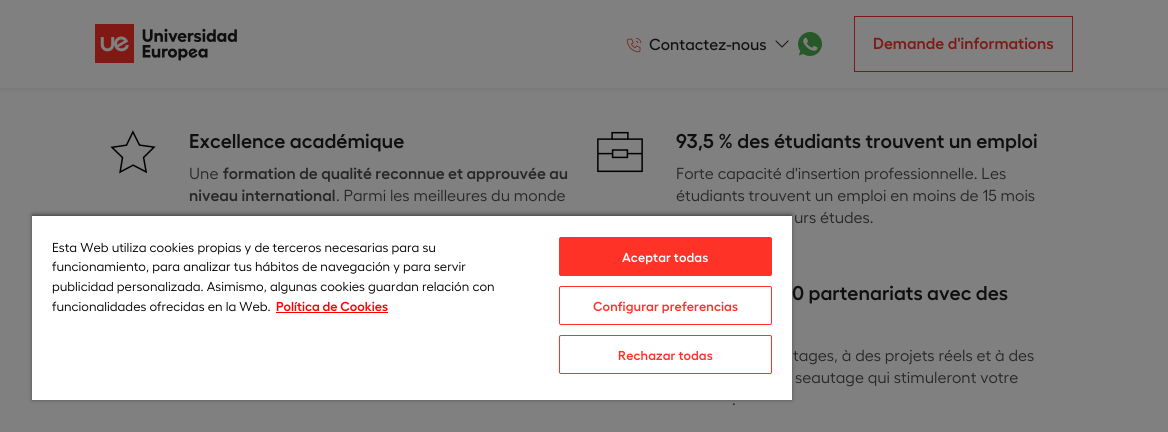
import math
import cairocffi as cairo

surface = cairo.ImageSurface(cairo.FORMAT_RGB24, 1168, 432)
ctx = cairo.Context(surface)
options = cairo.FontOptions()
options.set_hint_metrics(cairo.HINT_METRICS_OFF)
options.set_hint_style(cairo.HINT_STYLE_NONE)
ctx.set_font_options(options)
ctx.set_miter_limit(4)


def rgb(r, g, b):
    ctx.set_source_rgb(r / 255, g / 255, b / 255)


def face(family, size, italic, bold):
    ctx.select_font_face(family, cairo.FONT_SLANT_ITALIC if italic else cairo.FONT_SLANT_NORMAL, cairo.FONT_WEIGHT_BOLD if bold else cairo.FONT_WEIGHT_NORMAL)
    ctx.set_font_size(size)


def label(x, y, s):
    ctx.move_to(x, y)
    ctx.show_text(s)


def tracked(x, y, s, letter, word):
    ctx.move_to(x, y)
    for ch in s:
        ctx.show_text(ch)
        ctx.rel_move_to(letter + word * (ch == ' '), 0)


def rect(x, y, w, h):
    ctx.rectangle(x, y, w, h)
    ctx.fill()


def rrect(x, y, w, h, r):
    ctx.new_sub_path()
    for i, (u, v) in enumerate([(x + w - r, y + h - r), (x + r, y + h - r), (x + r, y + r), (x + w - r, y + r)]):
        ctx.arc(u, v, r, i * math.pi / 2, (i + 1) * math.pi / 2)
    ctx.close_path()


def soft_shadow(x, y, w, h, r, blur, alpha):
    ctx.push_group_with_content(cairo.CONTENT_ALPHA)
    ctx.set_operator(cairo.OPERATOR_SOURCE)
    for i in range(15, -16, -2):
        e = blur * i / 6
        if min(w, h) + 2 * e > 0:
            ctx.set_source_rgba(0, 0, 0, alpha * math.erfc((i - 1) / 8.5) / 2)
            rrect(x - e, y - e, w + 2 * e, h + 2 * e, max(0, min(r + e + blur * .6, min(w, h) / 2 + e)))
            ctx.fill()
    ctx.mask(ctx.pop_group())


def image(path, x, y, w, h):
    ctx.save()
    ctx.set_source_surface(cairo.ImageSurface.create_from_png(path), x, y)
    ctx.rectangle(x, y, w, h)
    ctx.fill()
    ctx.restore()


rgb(128, 128, 128)
ctx.paint()
rgb(0, 0, 0)
soft_shadow(0, 1, 1168, 88, 0, 2.5, 0.09)
rgb(128, 128, 128)
rect(0, 0, 1168, 88)
image('image0.png', 95, 24, 142, 39)
image('image1.png', 626, 38, 16, 15)
face('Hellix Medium', 16, 0, 0)
rgb(15, 15, 15)
label(649, 50, 'Contactez-nous')
image('image2.png', 775, 40, 14, 8)
image('image3.png', 798, 32, 24, 24)
ctx.rectangle(854.5, 16.5, 218, 55)
rgb(128, 25, 20)
ctx.set_line_width(1)
ctx.stroke()
face('Hellix SemiBold', 16, 0, 0)
label(873, 49, 'Demande d\'informations')
image('image4.png', 110, 130, 46, 44)
face('Hellix SemiBold', 20, 0, 0)
rgb(15, 15, 15)
label(189, 148, 'Excellence académique')
face('Hellix', 16, 0, 0)
rgb(40, 38, 38)
label(189, 179, 'Une')
face('Hellix SemiBold', 16, 0, 0)
label(223, 179, 'formation de qualité reconnue et approuvée au')
label(189, 201, 'niveau international')
face('Hellix', 16, 0, 0)
label(336, 201, '. Parmi les meilleures du monde')
image('image5.png', 597, 131, 46, 42)
face('Hellix SemiBold', 20, 0, 0)
rgb(15, 15, 15)
label(676, 148, '93,5 % des étudiants trouvent un emploi')
face('Hellix', 16, 0, 0)
rgb(40, 38, 38)
label(676, 179, 'Forte capacité d\'insertion professionnelle. Les')
label(676, 201, 'étudiants trouvent un emploi en moins de 15 mois')
label(794, 223, 'urs études.')
face('Hellix SemiBold', 20, 0, 0)
rgb(15, 15, 15)
label(792, 300, '0 partenariats avec des')
face('Hellix', 16, 0, 0)
rgb(40, 38, 38)
label(793, 361, 'tages, à des projets réels et à des')
label(795, 383, 'seautage qui stimuleront votre')
label(732, 405, '.')
rgb(0, 0, 0)
soft_shadow(32, 214, 760, 186, 0, 2, 0.35)
ctx.save()
ctx.rectangle(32, 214, 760, 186)
ctx.clip()
soft_shadow(32, 216, 760, 184, 0, 2, 0.2)
ctx.restore()
rgb(255, 255, 255)
rect(32, 216, 760, 184)
face('Hellix', 13, 0, 0)
rgb(0, 0, 0)
label(52, 252, 'Esta Web utiliza cookies propias y de terceros necesarias para su')
label(52, 271, 'funcionamiento, para analizar tus hábitos de navegación y para servir')
label(52, 291, 'publicidad personalizada. Asimismo, algunas cookies guardan relación con')
label(52, 311, 'funcionalidades ofrecidas en la Web.')
face('Hellix SemiBold', 13, 0, 0)
rgb(255, 0, 0)
label(276, 311, 'Política de Cookies')
rect(276, 312, 112, 1)
rgb(255, 50, 40)
rrect(559.5, 237.5, 212, 38, 1.5)
ctx.fill_preserve()
ctx.stroke()
rgb(255, 255, 255)
tracked(622, 262, 'Aceptar todas', 0.1, 0)
rrect(559.5, 286.5, 212, 38, 1.5)
rgb(255, 50, 40)
ctx.stroke()
tracked(593, 311, 'Configurar preferencias', 0.1, 0)
rrect(559.5, 335.5, 212, 38, 1.5)
ctx.stroke()
tracked(618, 360, 'Rechazar todas', 0.1, 0)
surface.write_to_png('render.png')
